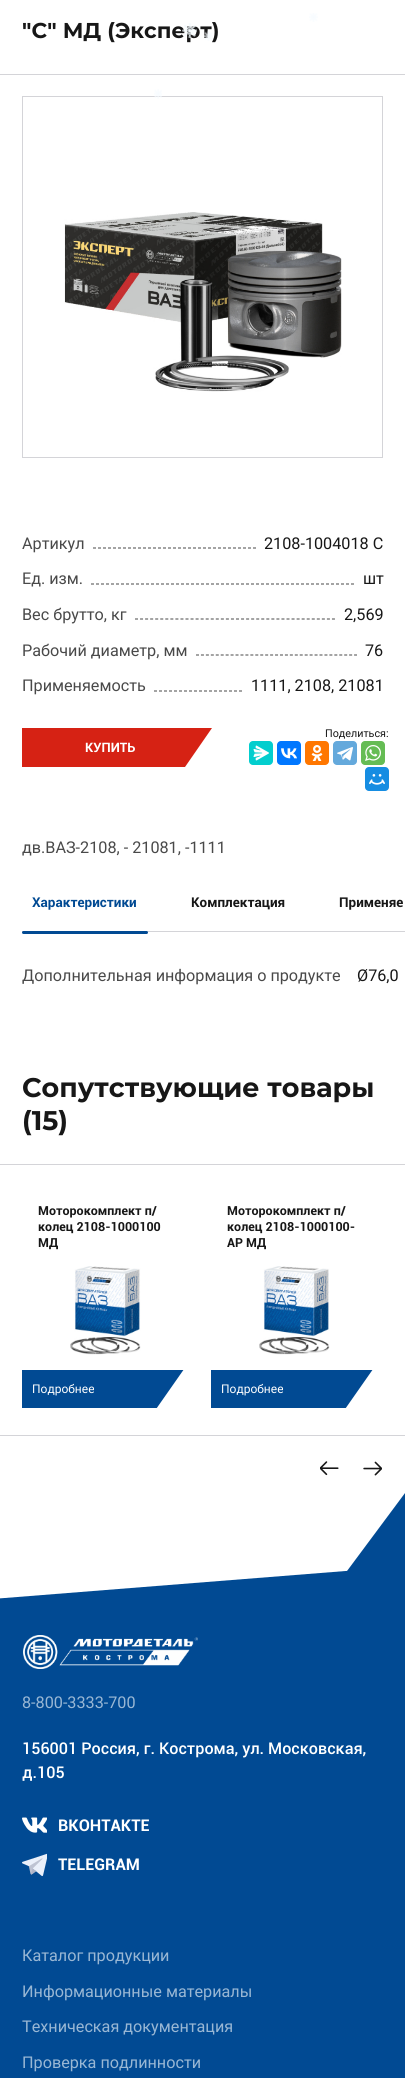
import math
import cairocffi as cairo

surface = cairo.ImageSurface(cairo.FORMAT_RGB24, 405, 2078)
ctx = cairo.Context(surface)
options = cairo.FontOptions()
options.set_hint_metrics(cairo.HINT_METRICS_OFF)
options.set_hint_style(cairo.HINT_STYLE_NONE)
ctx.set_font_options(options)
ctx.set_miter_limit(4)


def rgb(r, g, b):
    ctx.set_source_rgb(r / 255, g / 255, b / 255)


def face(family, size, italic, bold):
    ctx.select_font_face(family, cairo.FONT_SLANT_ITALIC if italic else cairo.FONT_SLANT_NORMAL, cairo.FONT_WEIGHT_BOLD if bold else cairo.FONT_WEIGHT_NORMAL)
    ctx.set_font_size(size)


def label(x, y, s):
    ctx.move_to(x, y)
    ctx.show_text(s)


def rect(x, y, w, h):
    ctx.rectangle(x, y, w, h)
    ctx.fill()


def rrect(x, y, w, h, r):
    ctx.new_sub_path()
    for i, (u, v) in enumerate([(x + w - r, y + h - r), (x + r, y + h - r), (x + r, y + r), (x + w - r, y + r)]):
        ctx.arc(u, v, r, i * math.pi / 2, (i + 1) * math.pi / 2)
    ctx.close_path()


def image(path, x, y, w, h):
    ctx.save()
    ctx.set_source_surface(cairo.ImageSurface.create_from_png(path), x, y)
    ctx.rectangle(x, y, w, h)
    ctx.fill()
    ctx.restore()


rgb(255, 255, 255)
ctx.paint()
image('image0.png', 309, 13, 9, 9)
face('Montserrat', 21.5, 0, 1)
rgb(23, 23, 23)
label(22, 38, '"C" МД (Эксперт)')
rgb(212, 212, 216)
rect(0, 74, 405, 1)
ctx.rectangle(22.5, 96.5, 360, 361)
ctx.set_line_width(1)
ctx.stroke()
image('image1.png', 64, 212, 278, 180)
face('Roboto', 16.2, 0, 0)
rgb(73, 73, 73)
label(22, 549, 'Артикул')
ctx.new_path()
ctx.move_to(93, 548)
ctx.line_to(256, 548)
ctx.set_dash([3, 2])
ctx.stroke()
rgb(23, 23, 23)
label(264, 549, '2108-1004018 C')
rgb(73, 73, 73)
label(22, 584, 'Ед. изм.')
ctx.new_path()
ctx.move_to(91, 584)
ctx.line_to(354, 584)
ctx.stroke()
rgb(23, 23, 23)
label(363, 584, 'шт')
rgb(73, 73, 73)
label(22, 620, 'Вес брутто, кг')
ctx.new_path()
ctx.move_to(135, 619)
ctx.line_to(335, 619)
ctx.set_dash([3, 2.05])
ctx.stroke()
rgb(23, 23, 23)
label(344, 620, '2,569')
rgb(73, 73, 73)
label(22, 656, 'Рабочий диаметр, мм')
ctx.new_path()
ctx.move_to(196, 655)
ctx.line_to(357, 655)
ctx.set_dash([3, 1.94])
ctx.stroke()
rgb(23, 23, 23)
label(365, 656, '76')
rgb(73, 73, 73)
label(22, 691, 'Применяемость')
ctx.new_path()
ctx.move_to(154, 691)
ctx.line_to(242, 691)
ctx.set_dash([3, 2])
ctx.stroke()
rgb(23, 23, 23)
label(251, 691, '1111, 2108, 21081')
face('Roboto', 10.75, 0, 0)
label(325, 737, 'Поделиться:')
rgb(3, 206, 206)
rrect(249, 741, 24, 24, 4)
ctx.fill()
image('image2.png', 253, 745, 16, 16)
rgb(0, 119, 255)
rrect(277, 741, 24, 24, 4)
ctx.fill()
image('image3.png', 281, 748, 16, 11)
rgb(255, 119, 0)
rrect(305, 741, 24, 24, 4)
ctx.fill()
image('image4.png', 311, 745, 12, 16)
rgb(100, 169, 220)
rrect(333, 741, 24, 24, 4)
ctx.fill()
image('image5.png', 337, 747, 16, 14)
rgb(101, 188, 84)
rrect(361, 741, 24, 24, 4)
ctx.fill()
image('image6.png', 365, 745, 16, 16)
rgb(22, 141, 226)
rrect(365, 767, 24, 24, 4)
ctx.fill()
image('image7.png', 369, 774, 16, 11)
ctx.save()
ctx.rectangle(22, 728, 191, 39)
ctx.clip()
rgb(214, 34, 20)
ctx.new_path()
ctx.move_to(21, 728)
ctx.line_to(212, 728)
ctx.line_to(185, 767)
ctx.line_to(-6, 767)
ctx.close_path()
ctx.fill()
ctx.restore()
face('Roboto', 13, 0, 1)
rgb(255, 255, 255)
label(85, 752, 'КУПИТЬ')
face('Roboto', 16.2, 0, 0)
rgb(73, 73, 73)
label(22, 853, 'дв.ВАЗ-2108, - 21081, -1111')
face('Roboto', 13.5, 0, 1)
rgb(1, 74, 147)
label(32, 907, 'Характеристики')
rgb(212, 212, 216)
rect(22, 931, 383, 1)
rgb(1, 74, 147)
rrect(22, 931, 126, 3, 1.5)
ctx.fill()
rgb(23, 23, 23)
label(191, 907, 'Комплектация')
label(339, 907, 'Применяе')
face('Roboto', 16.2, 0, 0)
rgb(73, 73, 73)
label(22, 981, 'Дополнительная информация о продукте')
rgb(23, 23, 23)
label(357, 981, 'Ø76,0')
face('Montserrat', 27, 0, 1)
label(22, 1097, 'Сопутствующие товары')
label(22, 1130, '(15)')
rgb(212, 212, 216)
rect(0, 1164, 405, 1)
face('Roboto', 12.5, 0, 1)
rgb(23, 23, 23)
label(38, 1215, 'Моторокомплект п/')
label(38, 1231, 'колец 2108-1000100')
label(38, 1247, 'МД')
image('image8.png', 70, 1266, 71, 89)
rgb(1, 74, 147)
rect(22, 1370, 162, 38)
face('Roboto', 12, 0, 0)
rgb(255, 255, 255)
label(32, 1393, 'Подробнее')
ctx.save()
ctx.rectangle(22, 1187, 361, 221)
ctx.clip()
ctx.new_path()
ctx.move_to(196, 1352)
ctx.line_to(231, 1376)
ctx.line_to(182, 1447)
ctx.line_to(147, 1422)
ctx.close_path()
ctx.fill()
ctx.restore()
face('Roboto', 12.5, 0, 1)
rgb(23, 23, 23)
label(227, 1215, 'Моторокомплект п/')
label(227, 1231, 'колец 2108-1000100-')
label(227, 1247, 'АР МД')
image('image8.png', 259, 1266, 71, 89)
rgb(1, 74, 147)
rect(211, 1370, 162, 38)
face('Roboto', 12, 0, 0)
rgb(255, 255, 255)
label(221, 1393, 'Подробнее')
ctx.save()
ctx.rectangle(22, 1187, 361, 221)
ctx.clip()
ctx.new_path()
ctx.move_to(385, 1352)
ctx.line_to(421, 1376)
ctx.line_to(371, 1447)
ctx.line_to(336, 1422)
ctx.close_path()
ctx.fill()
ctx.restore()
rgb(212, 212, 216)
rect(0, 1435, 405, 1)
image('image9.png', 320, 1461, 19, 15)
image('image10.png', 363, 1461, 19, 15)
rgb(1, 74, 147)
rect(396, 1575, 9, 60)
ctx.new_path()
ctx.move_to(-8, 1599)
ctx.line_to(396, 1567)
ctx.line_to(402, 1648)
ctx.line_to(-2, 1680)
ctx.close_path()
ctx.fill()
ctx.save()
ctx.rectangle(283, 1411, 122, 164)
ctx.clip()
ctx.new_path()
ctx.move_to(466, 1411)
ctx.line_to(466, 1649)
ctx.line_to(289, 1649)
ctx.close_path()
ctx.fill()
ctx.restore()
rect(0, 1635, 405, 443)
image('image11.png', 23, 1635, 175, 34)
face('Roboto', 16.2, 0, 0)
rgb(153, 183, 212)
label(22, 1708, '8-800-3333-700')
face('Roboto Medium', 16.2, 0, 0)
rgb(255, 255, 255)
label(22, 1754, '156001 Россия, г. Кострома, ул. Московская,')
label(22, 1778, 'д.105')
image('image12.png', 22, 1817, 25, 16)
face('Roboto', 16.2, 0, 1)
label(58, 1831, 'ВКОНТАКТЕ')
image('image13.png', 22, 1853, 25, 24)
label(58, 1870, 'TELEGRAM')
face('Roboto', 16.2, 0, 0)
rgb(153, 183, 212)
label(22, 1961, 'Каталог продукции')
label(22, 1997, 'Информационные материалы')
label(22, 2032, 'Техническая документация')
label(22, 2068, 'Проверка подлинности')
image('image14.png', 182, 23, 15, 15)
image('image15.png', 204, 30, 9, 11)
image('image16.png', 154, 89, 8, 10)
surface.write_to_png('render.png')
